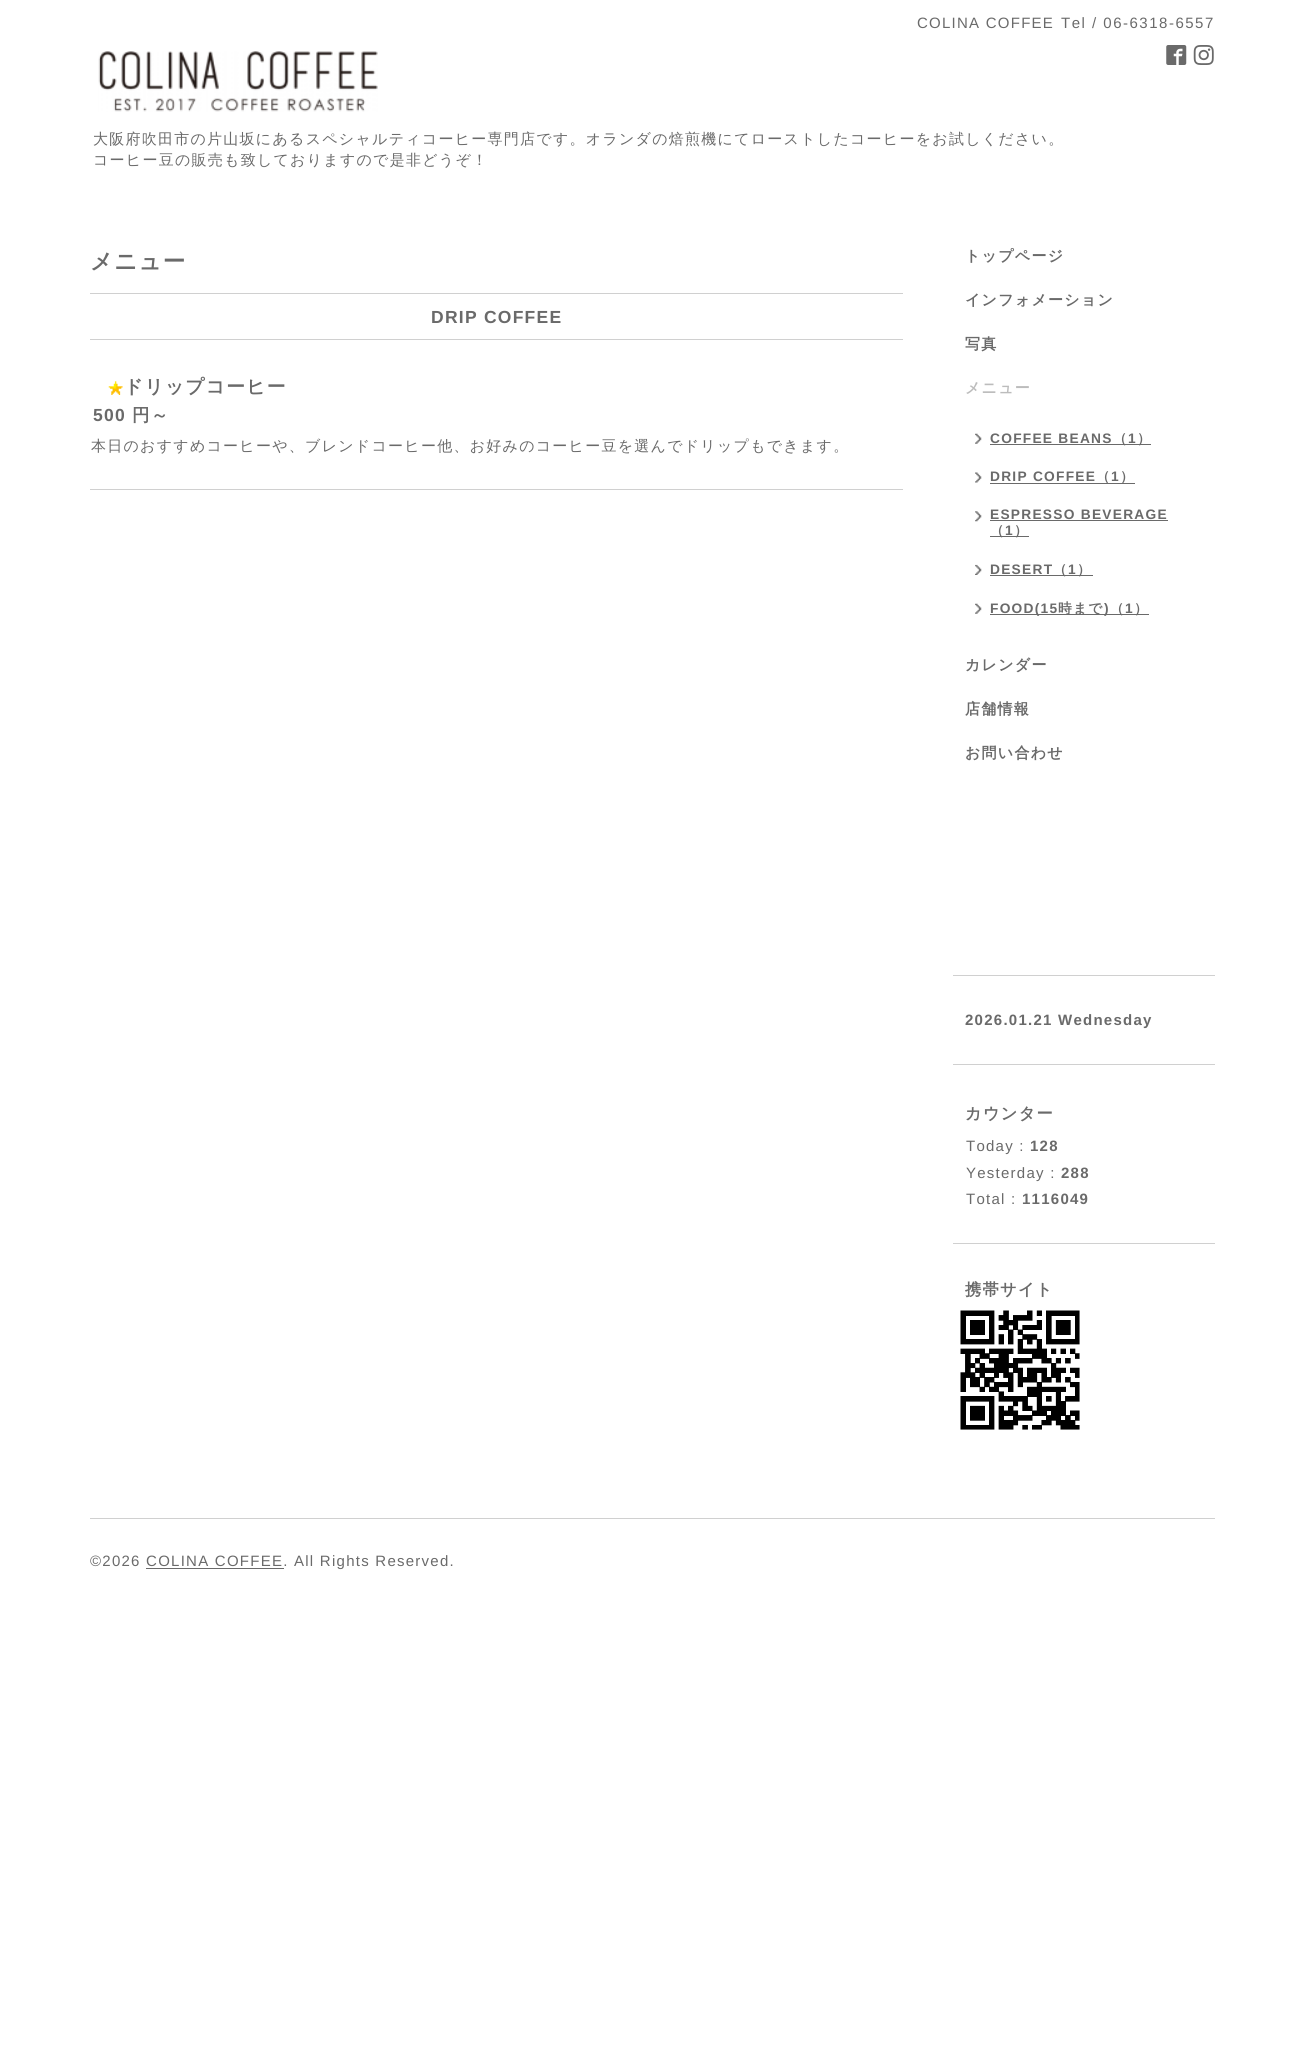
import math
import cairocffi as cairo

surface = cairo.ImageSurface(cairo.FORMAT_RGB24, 1305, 2046)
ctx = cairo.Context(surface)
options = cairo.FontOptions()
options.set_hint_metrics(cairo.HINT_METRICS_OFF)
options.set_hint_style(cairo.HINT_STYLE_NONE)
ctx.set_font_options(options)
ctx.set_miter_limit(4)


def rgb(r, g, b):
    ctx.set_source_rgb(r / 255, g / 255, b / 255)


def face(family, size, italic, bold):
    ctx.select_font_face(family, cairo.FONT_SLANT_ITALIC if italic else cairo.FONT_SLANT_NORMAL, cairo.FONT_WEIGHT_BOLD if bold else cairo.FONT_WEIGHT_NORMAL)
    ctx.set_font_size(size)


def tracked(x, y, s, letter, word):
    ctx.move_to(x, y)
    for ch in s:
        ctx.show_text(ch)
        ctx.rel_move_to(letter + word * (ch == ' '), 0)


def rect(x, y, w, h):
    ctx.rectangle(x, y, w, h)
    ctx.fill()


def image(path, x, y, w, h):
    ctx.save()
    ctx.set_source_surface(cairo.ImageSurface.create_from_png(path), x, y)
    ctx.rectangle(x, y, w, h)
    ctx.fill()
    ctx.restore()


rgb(255, 255, 255)
ctx.paint()
face('Liberation Sans', 15, 0, 0)
rgb(106, 106, 106)
tracked(917, 28, 'COLINA COFFEE', 1.25, 0)
tracked(1061, 28, 'Tel / 06-6318-6557', 1.5, 0)
image('image0.png', 1166, 45, 21, 20)
image('image1.png', 1193, 45, 21, 20)
image('image2.png', 98, 51, 280, 61)
face('WenQuanYi Zen Hei Medium', 15, 0, 0)
tracked(93, 144, '大阪府吹田市の片山坂にあるスペシャルティコーヒー専門店です。オランダの焙煎機にてローストしたコーヒーをお試しください。', 1.25, 0)
tracked(93, 165, 'コーヒー豆の販売も致しておりますので是非どうぞ！', 1.25, 0)
face('WenQuanYi Zen Hei', 22.5, 0, 1)
tracked(90, 269, 'メニュー', 1.25, 0)
rgb(208, 208, 208)
rect(90, 489, 813, 1)
rect(90, 293, 813, 1)
rect(90, 339, 813, 1)
face('Liberation Sans', 17.5, 0, 1)
rgb(106, 106, 106)
tracked(431, 323, 'DRIP COFFEE', 1.25, 0)
image('image3.png', 108, 381, 15, 14)
face('WenQuanYi Zen Hei', 18.75, 0, 1)
tracked(124, 393, 'ドリップコーヒー', 1.25, 0)
face('Liberation Sans', 17.5, 0, 1)
tracked(93, 421, '500', 1.25, 0)
face('WenQuanYi Zen Hei', 17.5, 0, 1)
tracked(132, 421, '円～', 1.25, 0)
face('WenQuanYi Zen Hei Medium', 15, 0, 0)
tracked(91, 451, '本日のおすすめコーヒーや、ブレンドコーヒー他、お好みのコーヒー豆を選んでドリップもできます。', 1.25, 0)
face('WenQuanYi Zen Hei', 15, 0, 1)
tracked(965, 261, 'トップページ', 1.25, 0)
tracked(965, 305, 'インフォメーション', 1.25, 0)
tracked(965, 349, '写真', 1.25, 0)
rgb(188, 188, 188)
tracked(965, 393, 'メニュー', 1.25, 0)
image('image4.png', 975, 433, 7, 11)
face('Liberation Sans', 13.75, 0, 1)
rgb(106, 106, 106)
tracked(990, 443, 'COFFEE BEANS', 1.25, 0)
rect(990, 444, 161, 1)
face('WenQuanYi Zen Hei', 13.75, 0, 1)
tracked(1113, 443, '（', 1.25, 0)
face('Liberation Sans', 13.75, 0, 1)
tracked(1128, 443, '1', 1.25, 0)
face('WenQuanYi Zen Hei', 13.75, 0, 1)
tracked(1137, 443, '）', 1.25, 0)
image('image5.png', 975, 472, 7, 11)
face('Liberation Sans', 13.75, 0, 1)
tracked(990, 481, 'DRIP COFFEE', 1.25, 0)
rect(990, 483, 145, 1)
face('WenQuanYi Zen Hei', 13.75, 0, 1)
tracked(1096, 481, '（', 1.25, 0)
face('Liberation Sans', 13.75, 0, 1)
tracked(1111, 481, '1', 1.25, 0)
face('WenQuanYi Zen Hei', 13.75, 0, 1)
tracked(1120, 481, '）', 1.25, 0)
image('image6.png', 975, 511, 7, 11)
face('Liberation Sans', 13.75, 0, 1)
tracked(990, 519, 'ESPRESSO BEVERAGE', 1.25, 0)
rect(990, 520, 178, 1)
rect(990, 536, 39, 1)
face('WenQuanYi Zen Hei', 13.75, 0, 1)
tracked(990, 535, '（', 1.25, 0)
face('Liberation Sans', 13.75, 0, 1)
tracked(1005, 535, '1', 1.25, 0)
face('WenQuanYi Zen Hei', 13.75, 0, 1)
tracked(1014, 535, '）', 1.25, 0)
image('image7.png', 975, 564, 7, 11)
face('Liberation Sans', 13.75, 0, 1)
tracked(990, 574, 'DESERT', 1.25, 0)
rect(990, 575, 103, 1)
face('WenQuanYi Zen Hei', 13.75, 0, 1)
tracked(1053, 574, '（', 1.25, 0)
face('Liberation Sans', 13.75, 0, 1)
tracked(1068, 574, '1', 1.25, 0)
face('WenQuanYi Zen Hei', 13.75, 0, 1)
tracked(1077, 574, '）', 1.25, 0)
image('image4.png', 975, 603, 7, 11)
rect(990, 614, 159, 1)
face('Liberation Sans', 13.75, 0, 1)
tracked(990, 613, 'FOOD(15', 1.25, 0)
face('WenQuanYi Zen Hei', 13.75, 0, 1)
tracked(1058, 613, '時まで', 1.25, 0)
face('Liberation Sans', 13.75, 0, 1)
tracked(1104, 613, ')', 1.25, 0)
face('WenQuanYi Zen Hei', 13.75, 0, 1)
tracked(1110, 613, '（', 1.25, 0)
face('Liberation Sans', 13.75, 0, 1)
tracked(1125, 613, '1', 1.25, 0)
face('WenQuanYi Zen Hei', 13.75, 0, 1)
tracked(1134, 613, '）', 1.25, 0)
face('WenQuanYi Zen Hei', 15, 0, 1)
tracked(965, 670, 'カレンダー', 1.25, 0)
tracked(965, 714, '店舗情報', 1.25, 0)
tracked(965, 758, 'お問い合わせ', 1.25, 0)
rgb(208, 208, 208)
rect(953, 975, 262, 1)
rect(953, 1064, 262, 1)
face('Liberation Sans', 15, 0, 1)
rgb(106, 106, 106)
tracked(965, 1025, '2026.01.21 Wednesday', 1.25, 0)
rgb(208, 208, 208)
rect(953, 1243, 262, 1)
face('WenQuanYi Zen Hei', 16.25, 0, 1)
rgb(106, 106, 106)
tracked(965, 1119, 'カウンター', 1.25, 0)
face('Liberation Sans', 15, 0, 0)
tracked(966, 1151, 'Today :', 1.25, 0)
face('Liberation Sans', 15, 0, 1)
tracked(1030, 1151, '128', 1.25, 0)
face('Liberation Sans', 15, 0, 0)
tracked(966, 1178, 'Yesterday :', 1.25, 0)
face('Liberation Sans', 15, 0, 1)
tracked(1061, 1178, '288', 1.25, 0)
face('Liberation Sans', 15, 0, 0)
tracked(966, 1204, 'Total :', 1.25, 0)
face('Liberation Sans', 15, 0, 1)
tracked(1022, 1204, '1116049', 1.25, 0)
face('WenQuanYi Zen Hei', 16.25, 0, 1)
tracked(965, 1295, '携帯サイト', 1.25, 0)
image('image8.png', 960, 1310, 120, 120)
rgb(208, 208, 208)
rect(90, 1518, 1125, 1)
face('Liberation Sans', 15, 0, 0)
rgb(106, 106, 106)
tracked(90, 1566, '©2026 COLINA COFFEE. All Rights Reserved.', 1.25, 0)
rect(146, 1568, 138, 1)
surface.write_to_png('render.png')
